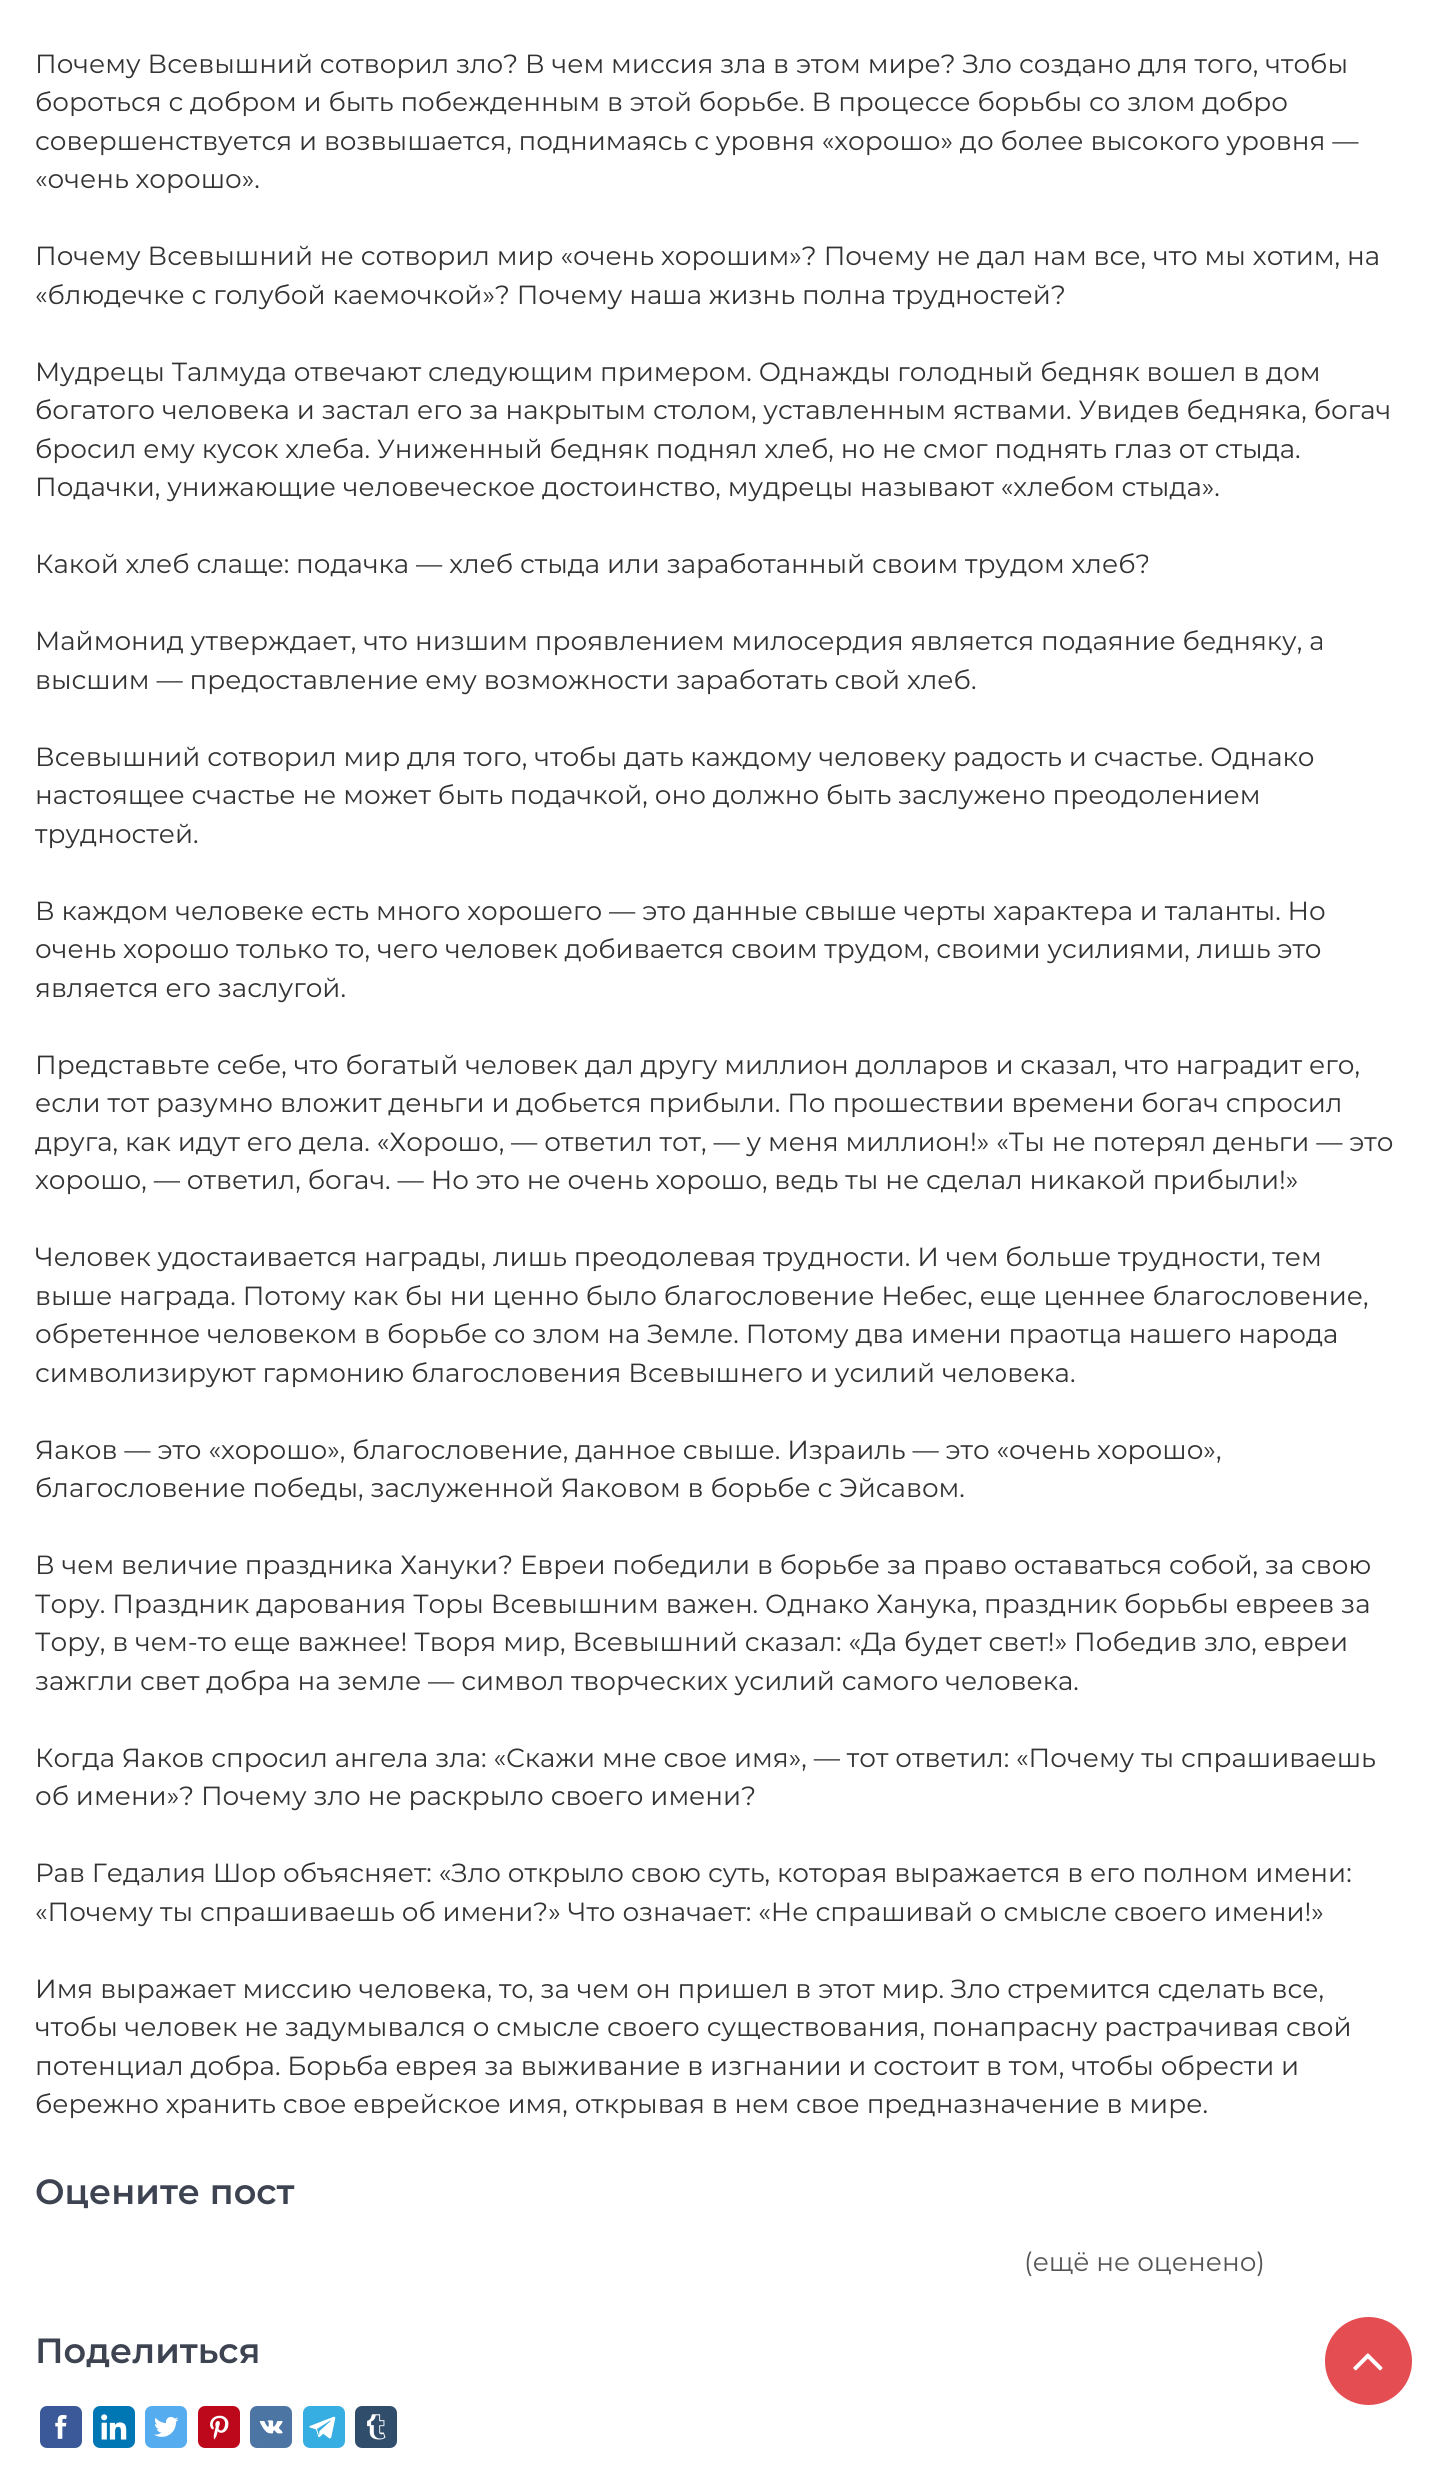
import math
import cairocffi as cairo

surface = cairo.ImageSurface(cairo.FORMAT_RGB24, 1429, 2491)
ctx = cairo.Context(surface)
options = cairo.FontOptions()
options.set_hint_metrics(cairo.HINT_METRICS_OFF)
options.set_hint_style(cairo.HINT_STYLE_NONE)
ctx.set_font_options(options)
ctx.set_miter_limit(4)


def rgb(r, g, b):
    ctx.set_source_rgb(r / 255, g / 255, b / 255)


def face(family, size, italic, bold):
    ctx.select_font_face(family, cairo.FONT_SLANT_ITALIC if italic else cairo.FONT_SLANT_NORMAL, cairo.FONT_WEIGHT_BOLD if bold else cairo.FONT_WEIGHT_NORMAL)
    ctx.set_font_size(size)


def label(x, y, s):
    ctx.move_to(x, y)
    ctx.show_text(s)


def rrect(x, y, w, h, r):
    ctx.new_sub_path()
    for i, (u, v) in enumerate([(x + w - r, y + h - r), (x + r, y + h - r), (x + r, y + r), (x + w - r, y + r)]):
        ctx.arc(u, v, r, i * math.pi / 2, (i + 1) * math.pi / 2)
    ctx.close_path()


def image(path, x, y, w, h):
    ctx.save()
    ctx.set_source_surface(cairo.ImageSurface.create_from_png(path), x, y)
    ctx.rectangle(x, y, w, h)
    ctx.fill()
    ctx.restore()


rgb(255, 255, 255)
ctx.paint()
face('Montserrat', 26.25, 0, 0)
rgb(51, 51, 51)
label(35, 73, 'Почему Всевышний сотворил зло? В чем миссия зла в этом мире? Зло создано для того, чтобы')
label(35, 111, 'бороться с добром и быть побежденным в этой борьбе. В процессе борьбы со злом добро')
label(35, 150, 'совершенствуется и возвышается, поднимаясь с уровня «хорошо» до более высокого уровня —')
label(35, 188, '«очень хорошо».')
label(35, 265, 'Почему Всевышний не сотворил мир «очень хорошим»? Почему не дал нам все, что мы хотим, на')
label(35, 304, '«блюдечке с голубой каемочкой»? Почему наша жизнь полна трудностей?')
label(35, 381, 'Мудрецы Талмуда отвечают следующим примером. Однажды голодный бедняк вошел в дом')
label(35, 419, 'богатого человека и застал его за накрытым столом, уставленным яствами. Увидев бедняка, богач')
label(35, 458, 'бросил ему кусок хлеба. Униженный бедняк поднял хлеб, но не смог поднять глаз от стыда.')
label(35, 496, 'Подачки, унижающие человеческое достоинство, мудрецы называют «хлебом стыда».')
label(35, 573, 'Какой хлеб слаще: подачка — хлеб стыда или заработанный своим трудом хлеб?')
label(35, 650, 'Маймонид утверждает, что низшим проявлением милосердия является подаяние бедняку, а')
label(35, 689, 'высшим — предоставление ему возможности заработать свой хлеб.')
label(35, 766, 'Всевышний сотворил мир для того, чтобы дать каждому человеку радость и счастье. Однако')
label(35, 804, 'настоящее счастье не может быть подачкой, оно должно быть заслужено преодолением')
label(35, 843, 'трудностей.')
label(35, 920, 'В каждом человеке есть много хорошего — это данные свыше черты характера и таланты. Но')
label(35, 958, 'очень хорошо только то, чего человек добивается своим трудом, своими усилиями, лишь это')
label(35, 997, 'является его заслугой.')
label(35, 1074, 'Представьте себе, что богатый человек дал другу миллион долларов и сказал, что наградит его,')
label(35, 1112, 'если тот разумно вложит деньги и добьется прибыли. По прошествии времени богач спросил')
label(35, 1151, 'друга, как идут его дела. «Хорошо, — ответил тот, — у меня миллион!» «Ты не потерял деньги — это')
label(35, 1189, 'хорошо, — ответил, богач. — Но это не очень хорошо, ведь ты не сделал никакой прибыли!»')
label(35, 1266, 'Человек удостаивается награды, лишь преодолевая трудности. И чем больше трудности, тем')
label(35, 1305, 'выше награда. Потому как бы ни ценно было благословение Небес, еще ценнее благословение,')
label(35, 1343, 'обретенное человеком в борьбе со злом на Земле. Потому два имени праотца нашего народа')
label(35, 1382, 'символизируют гармонию благословения Всевышнего и усилий человека.')
label(35, 1459, 'Яаков — это «хорошо», благословение, данное свыше. Израиль — это «очень хорошо»,')
label(35, 1497, 'благословение победы, заслуженной Яаковом в борьбе с Эйсавом.')
label(35, 1574, 'В чем величие праздника Хануки? Евреи победили в борьбе за право оставаться собой, за свою')
label(35, 1613, 'Тору. Праздник дарования Торы Всевышним важен. Однако Ханука, праздник борьбы евреев за')
label(35, 1651, 'Тору, в чем-то еще важнее! Творя мир, Всевышний сказал: «Да будет свет!» Победив зло, евреи')
label(35, 1690, 'зажгли свет добра на земле — символ творческих усилий самого человека.')
label(35, 1767, 'Когда Яаков спросил ангела зла: «Скажи мне свое имя», — тот ответил: «Почему ты спрашиваешь')
label(35, 1805, 'об имени»? Почему зло не раскрыло своего имени?')
label(35, 1882, 'Рав Гедалия Шор объясняет: «Зло открыло свою суть, которая выражается в его полном имени:')
label(35, 1921, '«Почему ты спрашиваешь об имени?» Что означает: «Не спрашивай о смысле своего имени!»')
label(35, 1998, 'Имя выражает миссию человека, то, за чем он пришел в этот мир. Зло стремится сделать все,')
label(35, 2036, 'чтобы человек не задумывался о смысле своего существования, понапрасну растрачивая свой')
label(35, 2075, 'потенциал добра. Борьба еврея за выживание в изгнании и состоит в том, чтобы обрести и')
label(35, 2113, 'бережно хранить свое еврейское имя, открывая в нем свое предназначение в мире.')
face('Montserrat SemiBold', 35, 0, 0)
rgb(61, 67, 81)
label(35, 2204, 'Оцените пост')
face('Montserrat', 26.25, 0, 0)
rgb(85, 85, 85)
label(1024, 2271, '(ещё не оценено)')
face('Montserrat SemiBold', 35, 0, 0)
rgb(61, 67, 81)
label(35, 2363, 'Поделиться')
rgb(59, 89, 152)
rrect(40, 2406, 42, 42, 7)
ctx.fill()
image('image0.png', 55, 2415, 12, 24)
rgb(0, 119, 181)
rrect(93, 2406, 42, 42, 7)
ctx.fill()
image('image1.png', 101, 2414, 26, 26)
rgb(85, 172, 238)
rrect(145, 2406, 42, 42, 7)
ctx.fill()
image('image2.png', 154, 2417, 25, 20)
rgb(189, 8, 28)
rrect(198, 2406, 42, 42, 7)
ctx.fill()
image('image3.png', 210, 2415, 19, 25)
rgb(77, 117, 163)
rrect(250, 2406, 42, 42, 7)
ctx.fill()
image('image4.png', 259, 2420, 24, 14)
rgb(55, 174, 226)
rrect(303, 2406, 42, 42, 7)
ctx.fill()
image('image5.png', 309, 2416, 27, 23)
rgb(48, 78, 108)
rrect(355, 2406, 42, 42, 7)
ctx.fill()
image('image6.png', 367, 2414, 19, 26)
rgb(228, 77, 82)
rrect(1325, 2317, 87, 88, 43.5)
ctx.fill()
image('image7.png', 1353, 2353, 30, 18)
surface.write_to_png('render.png')
